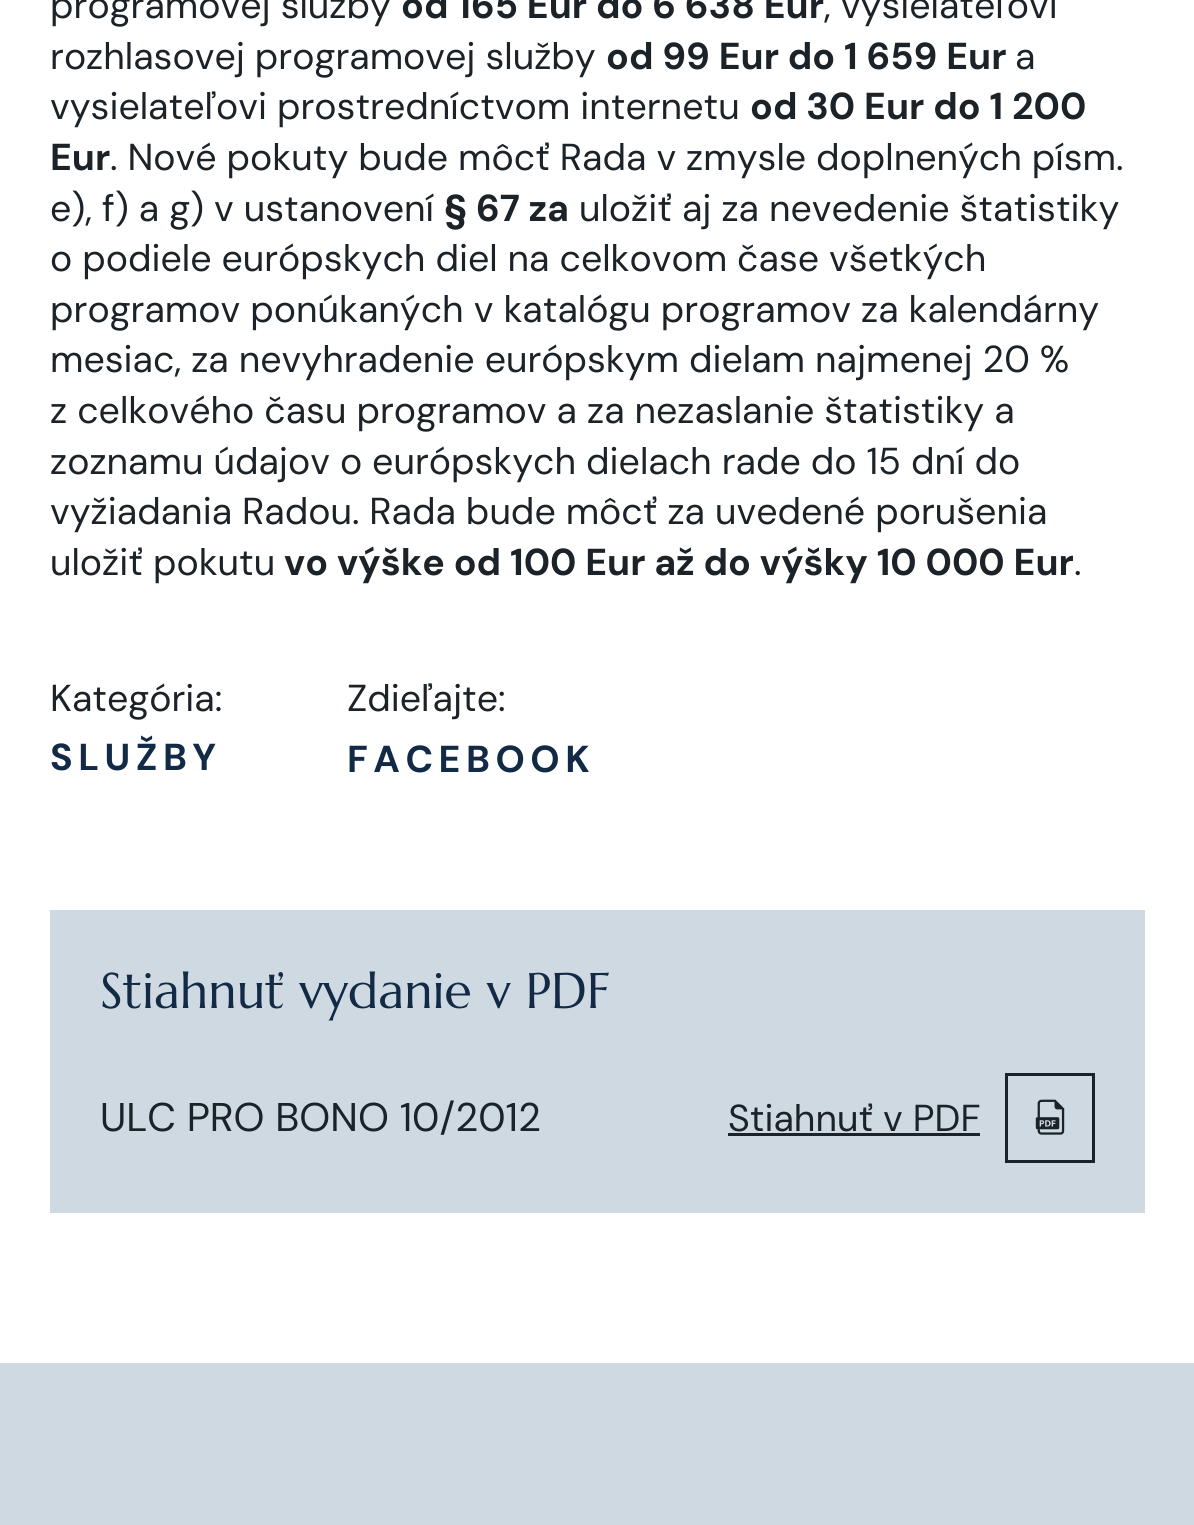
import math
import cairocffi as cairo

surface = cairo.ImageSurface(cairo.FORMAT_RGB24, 1194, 1525)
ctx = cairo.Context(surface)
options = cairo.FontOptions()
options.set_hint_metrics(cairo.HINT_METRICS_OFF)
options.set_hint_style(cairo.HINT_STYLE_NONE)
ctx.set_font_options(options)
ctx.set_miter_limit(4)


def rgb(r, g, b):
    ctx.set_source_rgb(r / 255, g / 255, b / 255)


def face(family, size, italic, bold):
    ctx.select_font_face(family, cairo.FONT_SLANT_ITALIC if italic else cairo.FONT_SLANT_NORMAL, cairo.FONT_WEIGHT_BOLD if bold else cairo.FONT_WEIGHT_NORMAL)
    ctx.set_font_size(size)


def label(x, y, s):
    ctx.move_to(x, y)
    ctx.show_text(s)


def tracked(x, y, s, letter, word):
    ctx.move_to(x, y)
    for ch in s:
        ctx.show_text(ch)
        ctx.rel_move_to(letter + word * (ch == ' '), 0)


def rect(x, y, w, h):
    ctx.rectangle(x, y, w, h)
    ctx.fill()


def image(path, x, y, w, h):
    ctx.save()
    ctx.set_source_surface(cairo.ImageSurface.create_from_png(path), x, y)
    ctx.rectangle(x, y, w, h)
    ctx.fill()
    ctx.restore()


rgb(255, 255, 255)
ctx.paint()
face('DM Sans', 37.5, 0, 0)
rgb(27, 34, 40)
label(50, 18, 'programovej služby')
face('DM Sans', 37.5, 0, 1)
label(401, 18, 'od 165 Eur do 6 638 Eur')
face('DM Sans', 37.5, 0, 0)
label(824, 18, ', vysielateľovi')
label(50, 69, 'rozhlasovej programovej služby')
face('DM Sans', 37.5, 0, 1)
label(606, 69, 'od 99 Eur do 1 659 Eur')
face('DM Sans', 37.5, 0, 0)
label(1015, 69, 'a')
label(50, 119, 'vysielateľovi prostredníctvom internetu')
face('DM Sans', 37.5, 0, 1)
label(750, 119, 'od 30 Eur do 1 200')
label(50, 170, 'Eur')
face('DM Sans', 37.5, 0, 0)
label(110, 170, '. Nové pokuty bude môcť Rada v zmysle doplnených písm.')
label(50, 221, 'e), f) a g) v ustanovení')
face('DM Sans', 37.5, 0, 1)
label(444, 221, '§ 67 za')
face('DM Sans', 37.5, 0, 0)
label(579, 221, 'uložiť aj za nevedenie štatistiky')
label(50, 271, 'o podiele európskych diel na celkovom čase všetkých')
label(50, 322, 'programov ponúkaných v katalógu programov za kalendárny')
label(50, 372, 'mesiac, za nevyhradenie európskym dielam najmenej 20 %')
label(50, 423, 'z celkového času programov a za nezaslanie štatistiky a')
label(50, 474, 'zoznamu údajov o európskych dielach rade do 15 dní do')
label(50, 524, 'vyžiadania Radou. Rada bude môcť za uvedené porušenia')
label(50, 575, 'uložiť pokutu')
face('DM Sans', 37.5, 0, 1)
label(284, 575, 'vo výške od 100 Eur až do výšky 10 000 Eur')
face('DM Sans', 37.5, 0, 0)
label(1074, 575, '.')
label(50, 711, 'Kategória:')
face('DM Sans', 37.5, 0, 1)
rgb(18, 42, 70)
tracked(50, 770, 'SLUŽBY', 5.5, 0)
face('DM Sans', 37.5, 0, 0)
rgb(27, 34, 40)
label(347, 711, 'Zdieľajte:')
face('DM Sans', 37.5, 0, 1)
rgb(18, 42, 70)
tracked(347, 772, 'FACEBOOK', 5.5, 0)
rgb(207, 217, 225)
rect(50, 910, 1095, 303)
face('Marcellus', 50, 0, 0)
rgb(18, 42, 70)
label(100, 1008, 'Stiahnuť vydanie v PDF')
face('DM Sans', 40, 0, 0)
rgb(27, 34, 40)
label(100, 1131, 'ULC PRO BONO 10/2012')
face('DM Sans', 37.5, 0, 0)
label(728, 1131, 'Stiahnuť v PDF')
rect(728, 1133, 252, 3)
ctx.rectangle(1006.5, 1074.5, 87, 87)
ctx.set_line_width(3)
ctx.stroke()
image('image0.png', 1035, 1099, 30, 36)
rgb(207, 217, 225)
rect(0, 1363, 1194, 162)
surface.write_to_png('render.png')
